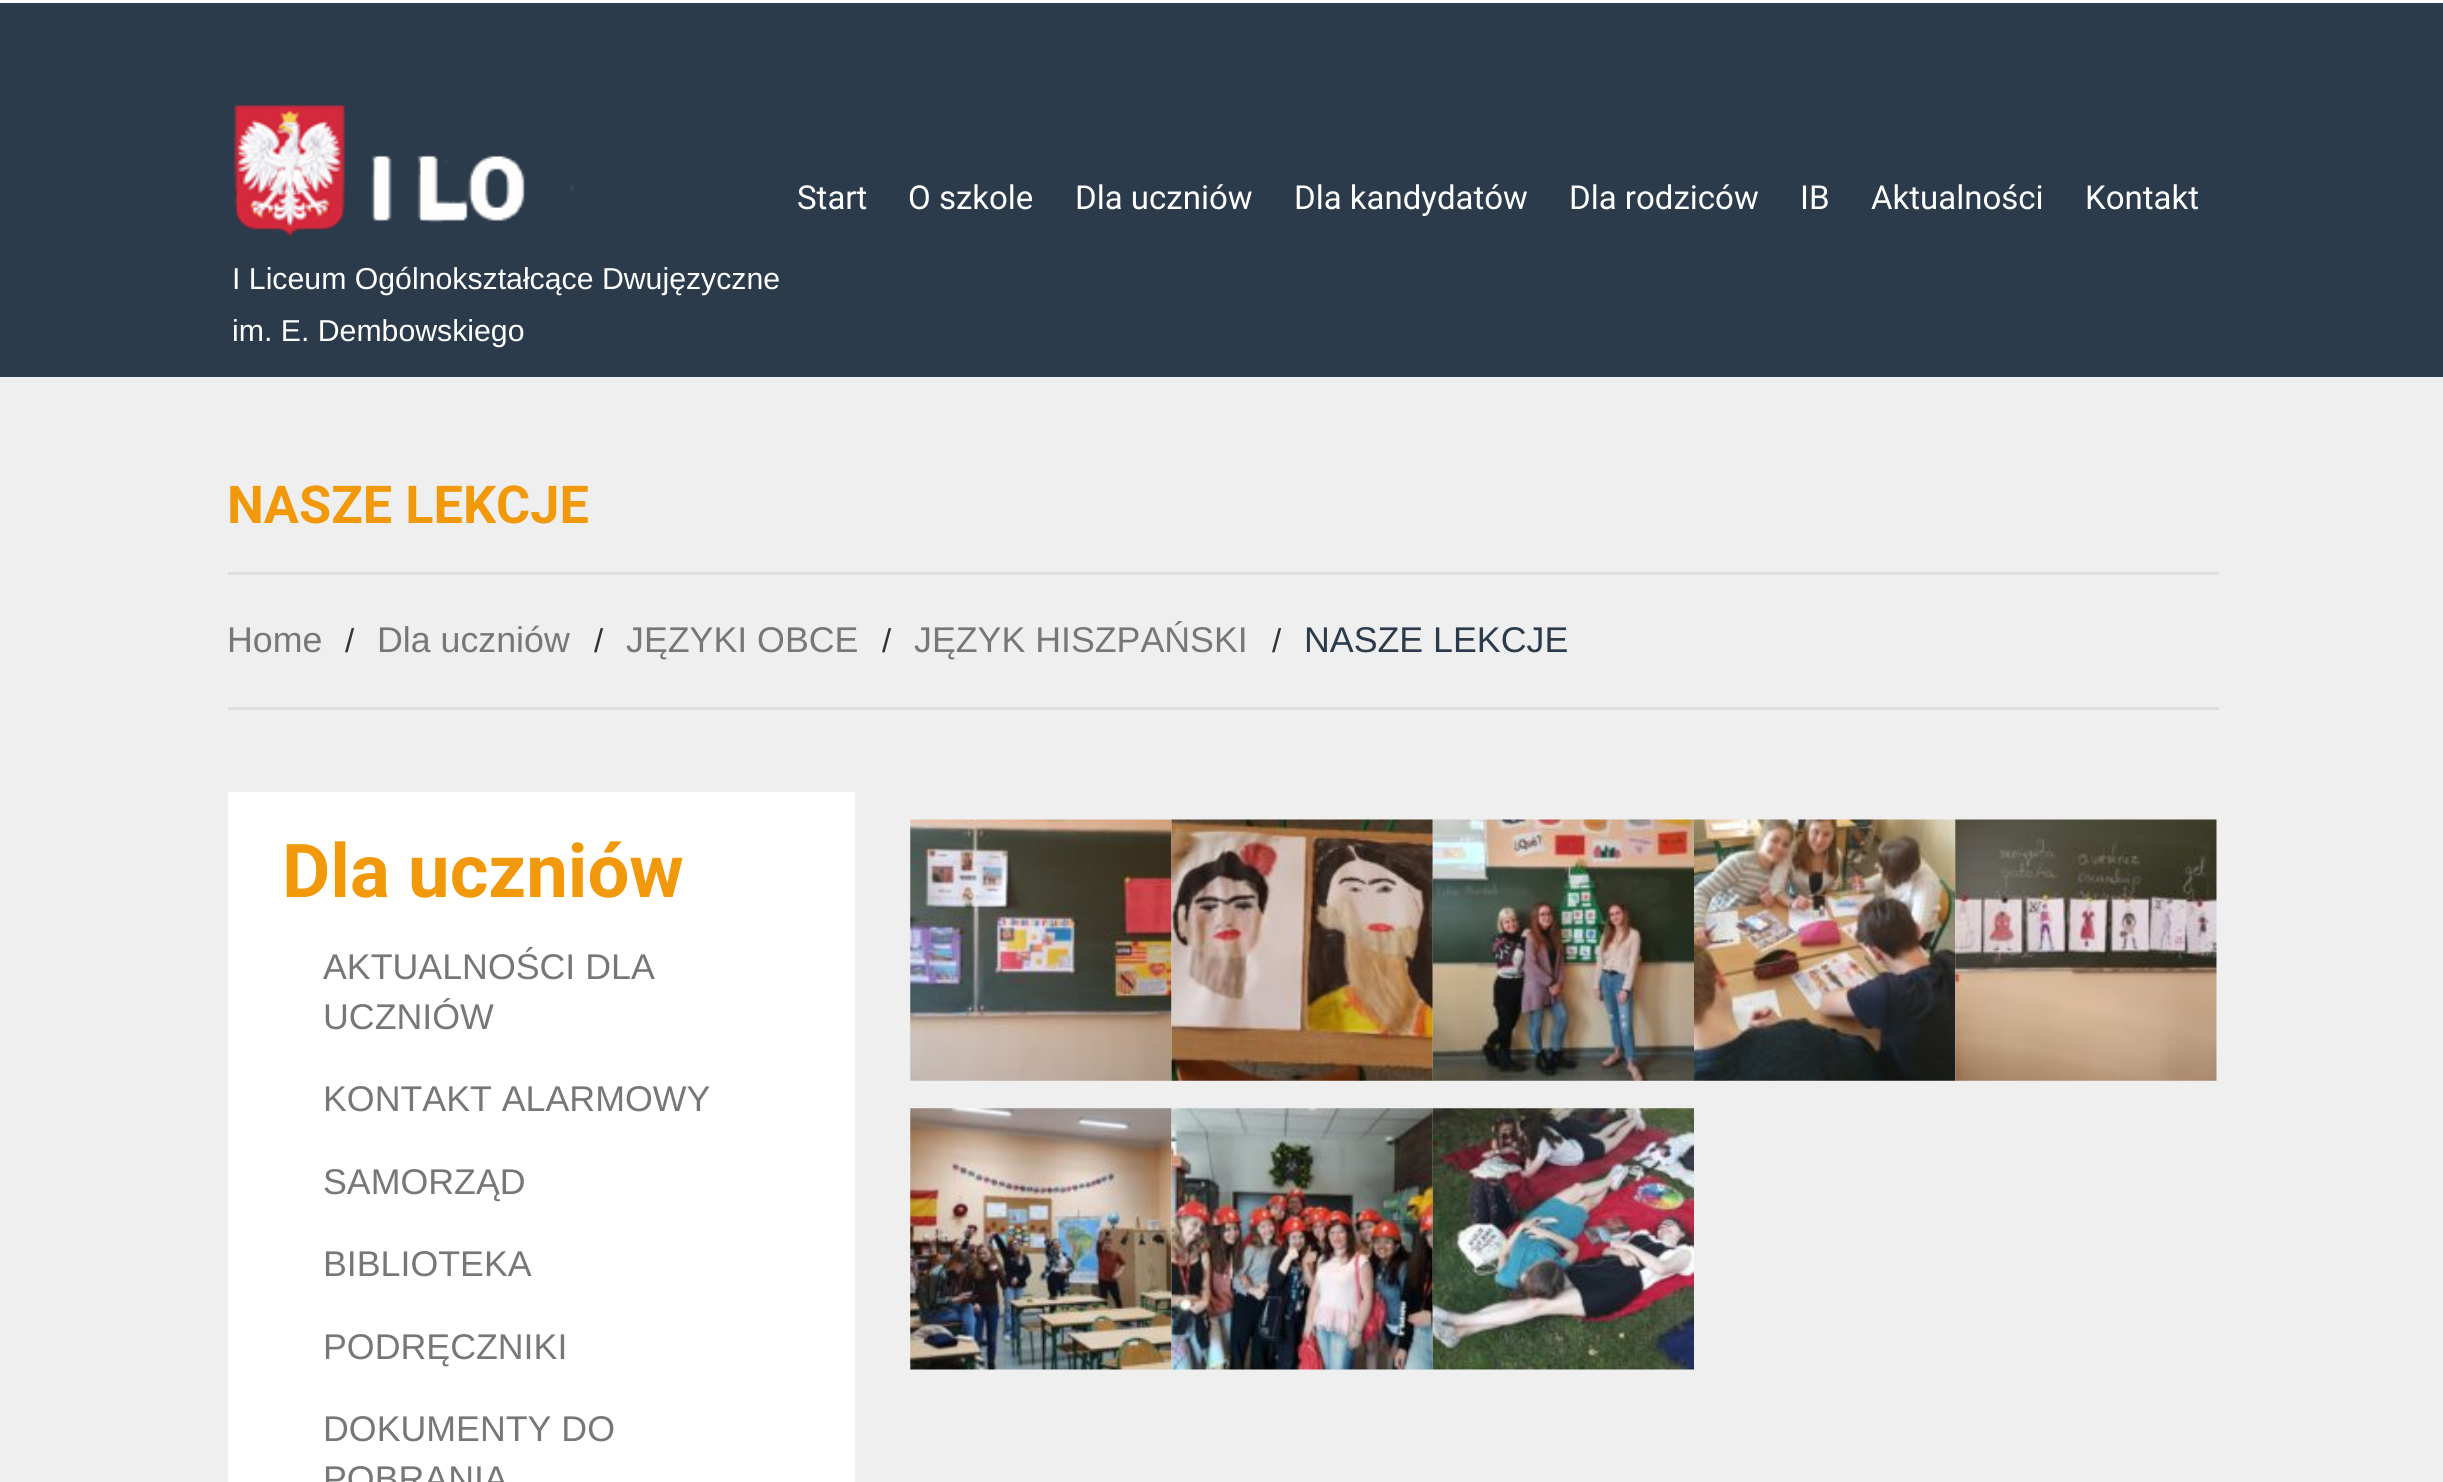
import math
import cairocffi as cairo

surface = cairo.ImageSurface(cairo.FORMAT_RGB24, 2443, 1482)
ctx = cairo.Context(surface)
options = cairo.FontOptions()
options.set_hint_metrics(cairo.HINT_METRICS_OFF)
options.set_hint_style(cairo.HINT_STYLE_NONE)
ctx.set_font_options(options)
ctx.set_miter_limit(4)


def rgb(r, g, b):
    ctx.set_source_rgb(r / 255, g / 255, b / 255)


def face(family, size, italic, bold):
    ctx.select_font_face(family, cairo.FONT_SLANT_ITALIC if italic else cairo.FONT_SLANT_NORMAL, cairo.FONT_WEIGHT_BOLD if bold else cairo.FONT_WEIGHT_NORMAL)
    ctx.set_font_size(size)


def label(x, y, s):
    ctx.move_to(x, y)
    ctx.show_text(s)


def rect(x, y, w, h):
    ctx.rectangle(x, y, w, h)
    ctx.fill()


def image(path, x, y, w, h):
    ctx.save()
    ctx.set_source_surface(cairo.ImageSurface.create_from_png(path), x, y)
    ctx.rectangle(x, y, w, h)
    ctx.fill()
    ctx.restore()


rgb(43, 59, 75)
ctx.paint()
rgb(255, 255, 255)
rect(0, 0, 228, 3)
rect(228, 0, 2215, 3)
face('Roboto', 33, 0, 0)
label(797, 209, 'Start')
label(908, 209, 'O szkole')
label(1075, 209, 'Dla uczniów')
label(1294, 209, 'Dla kandydatów')
label(1569, 209, 'Dla rodziców')
label(1800, 209, 'IB')
label(1871, 209, 'Aktualności')
label(2085, 209, 'Kontakt')
image('image0.png', 234, 104, 340, 134)
face('Liberation Sans', 30.25, 0, 0)
label(232, 289, 'I Liceum Ogólnokształcące Dwujęzyczne')
label(232, 341, 'im. E. Dembowskiego')
rgb(239, 239, 239)
rect(0, 377, 2443, 1105)
face('Roboto', 52.25, 0, 1)
rgb(242, 153, 11)
label(227, 523, 'NASZE LEKCJE')
rgb(223, 222, 222)
rect(228, 572, 1991, 3)
rect(228, 707, 1991, 3)
face('Liberation Sans', 35.75, 0, 0)
rgb(119, 119, 119)
label(227, 652, 'Home')
face('Liberation Sans', 33, 0, 0)
rgb(51, 51, 51)
label(345, 652, '/')
face('Liberation Sans', 35.75, 0, 0)
rgb(119, 119, 119)
label(377, 652, 'Dla uczniów')
face('Liberation Sans', 33, 0, 0)
rgb(51, 51, 51)
label(594, 652, '/')
face('Liberation Sans', 35.75, 0, 0)
rgb(119, 119, 119)
label(626, 652, 'JĘZYKI OBCE')
face('Liberation Sans', 33, 0, 0)
rgb(51, 51, 51)
label(882, 652, '/')
face('Liberation Sans', 35.75, 0, 0)
rgb(119, 119, 119)
label(914, 652, 'JĘZYK HISZPAŃSKI')
face('Liberation Sans', 33, 0, 0)
rgb(51, 51, 51)
label(1272, 652, '/')
face('Liberation Sans', 35.75, 0, 0)
rgb(43, 59, 75)
label(1304, 652, 'NASZE LEKCJE')
rgb(255, 255, 255)
rect(228, 792, 627, 690)
face('Roboto', 74.25, 0, 1)
rgb(242, 153, 11)
label(282, 897, 'Dla uczniów')
face('Liberation Sans', 35.75, 0, 0)
rgb(119, 119, 119)
label(323, 979, 'AKTUALNOŚCI DLA')
label(323, 1029, 'UCZNIÓW')
label(323, 1111, 'KONTAKT ALARMOWY')
label(323, 1194, 'SAMORZĄD')
label(323, 1276, 'BIBLIOTEKA')
label(323, 1359, 'PODRĘCZNIKI')
label(323, 1441, 'DOKUMENTY DO')
label(323, 1491, 'POBRANIA')
image('image1.png', 910, 819, 262, 262)
image('image2.png', 1171, 819, 262, 262)
image('image3.png', 1432, 819, 262, 262)
image('image4.png', 1694, 819, 262, 262)
image('image5.png', 1955, 819, 262, 262)
image('image6.png', 910, 1108, 262, 262)
image('image7.png', 1171, 1108, 262, 262)
image('image8.png', 1432, 1108, 262, 262)
surface.write_to_png('render.png')
